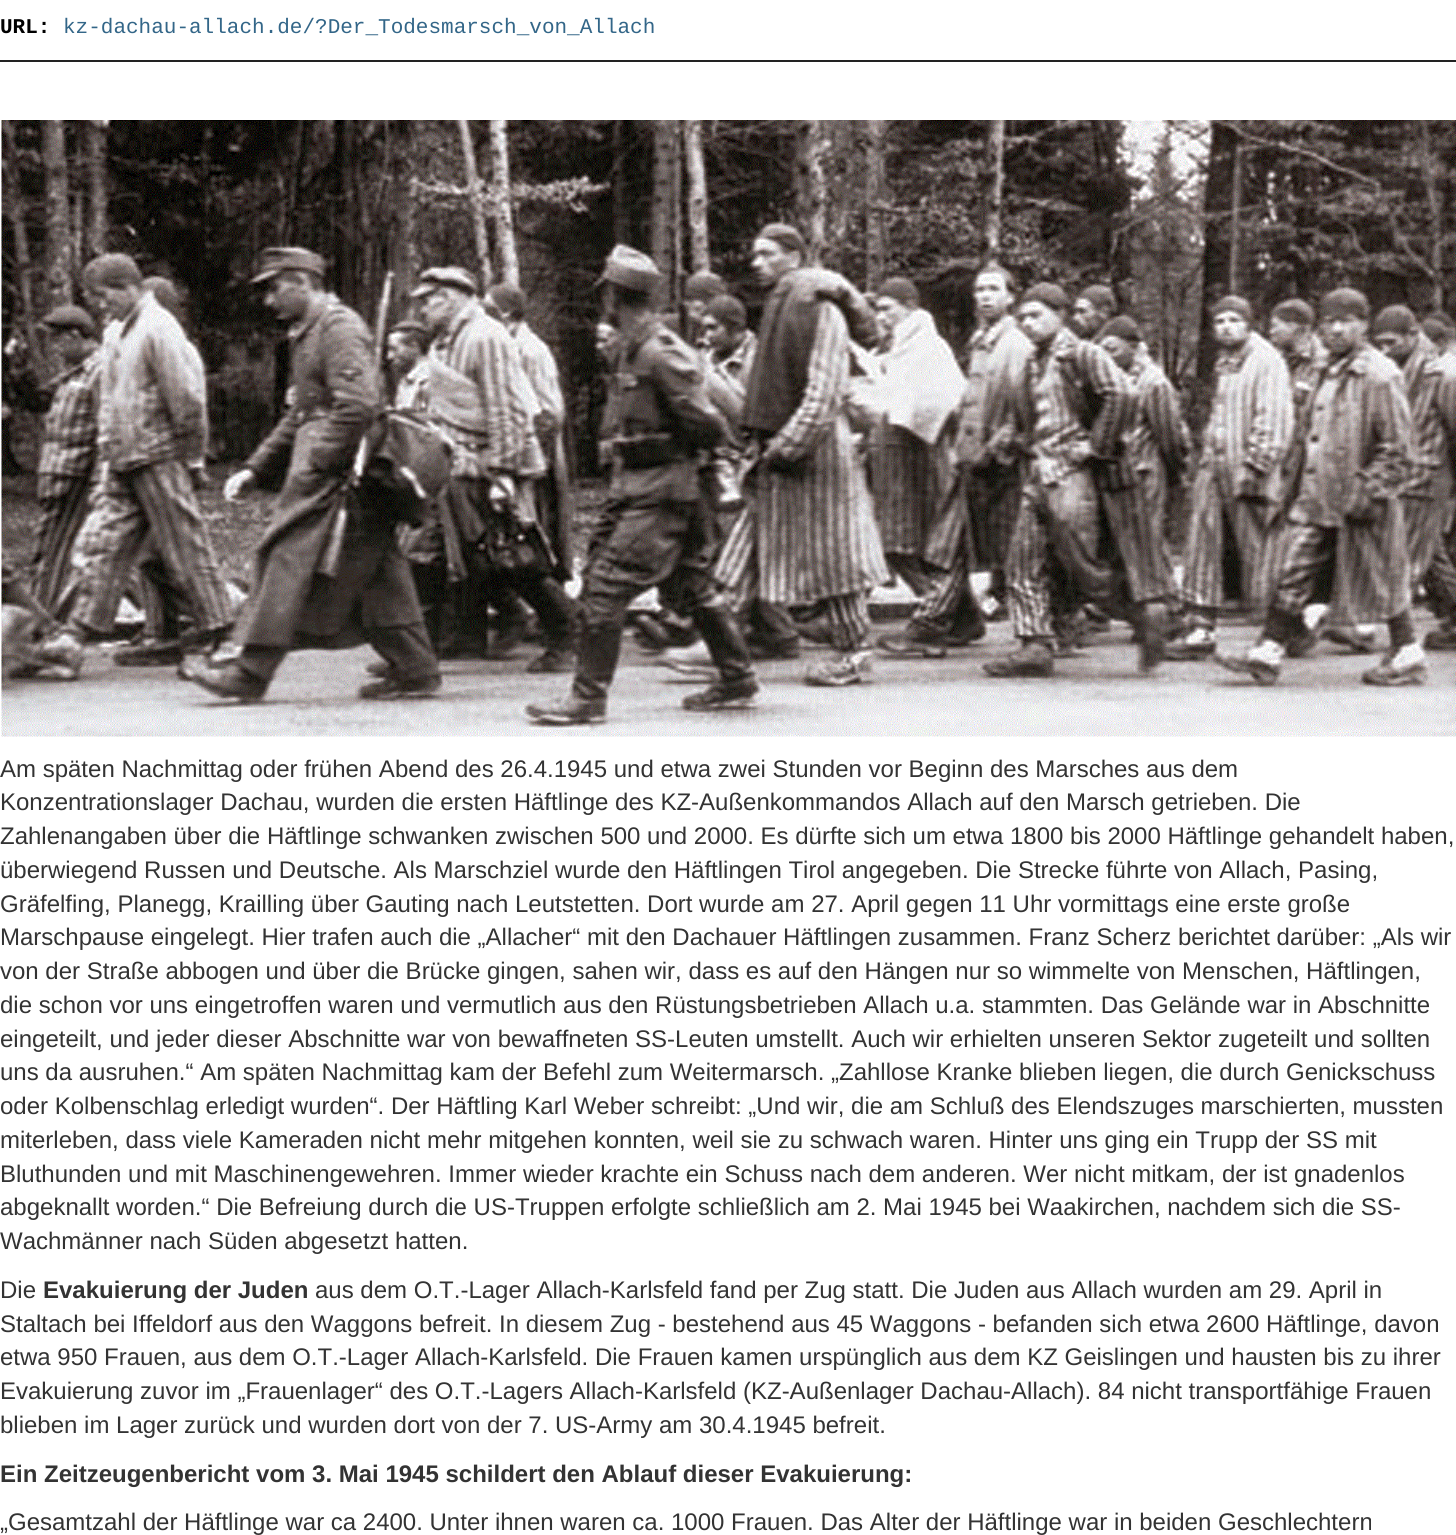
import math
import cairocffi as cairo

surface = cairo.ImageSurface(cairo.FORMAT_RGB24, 1456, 1535)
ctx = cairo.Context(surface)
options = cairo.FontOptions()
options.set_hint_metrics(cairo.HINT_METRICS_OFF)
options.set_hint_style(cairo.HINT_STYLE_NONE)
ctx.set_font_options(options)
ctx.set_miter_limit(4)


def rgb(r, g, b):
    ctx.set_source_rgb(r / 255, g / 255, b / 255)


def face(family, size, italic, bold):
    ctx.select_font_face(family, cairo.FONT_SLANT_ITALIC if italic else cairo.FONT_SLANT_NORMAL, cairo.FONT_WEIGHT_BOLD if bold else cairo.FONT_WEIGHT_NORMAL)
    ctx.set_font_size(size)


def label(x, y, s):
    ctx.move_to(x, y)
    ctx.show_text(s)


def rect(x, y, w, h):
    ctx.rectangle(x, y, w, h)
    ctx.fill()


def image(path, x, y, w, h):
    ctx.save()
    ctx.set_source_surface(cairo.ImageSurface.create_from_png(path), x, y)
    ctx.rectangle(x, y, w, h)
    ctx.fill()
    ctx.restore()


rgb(255, 255, 255)
ctx.paint()
rgb(34, 34, 34)
rect(0, 60, 1456, 2)
face('Liberation Mono', 21, 0, 1)
rgb(0, 0, 0)
label(0, 33, 'URL:')
face('Liberation Mono', 21, 0, 0)
rgb(51, 102, 136)
label(63, 33, 'kz-dachau-allach.de/?Der_Todesmarsch_von_Allach')
image('image0.png', 1, 120, 1455, 617)
face('Liberation Sans', 24, 0, 0)
rgb(51, 51, 51)
label(0, 777, 'Am späten Nachmittag oder frühen Abend des 26.4.1945 und etwa zwei Stunden vor Beginn des Marsches aus dem')
label(0, 810, 'Konzentrationslager Dachau, wurden die ersten Häftlinge des KZ-Außenkommandos Allach auf den Marsch getrieben. Die')
label(0, 844, 'Zahlenangaben über die Häftlinge schwanken zwischen 500 und 2000. Es dürfte sich um etwa 1800 bis 2000 Häftlinge gehandelt haben,')
label(0, 878, 'überwiegend Russen und Deutsche. Als Marschziel wurde den Häftlingen Tirol angegeben. Die Strecke führte von Allach, Pasing,')
label(0, 912, 'Gräfelfing, Planegg, Krailling über Gauting nach Leutstetten. Dort wurde am 27. April gegen 11 Uhr vormittags eine erste große')
label(0, 945, 'Marschpause eingelegt. Hier trafen auch die „Allacher“ mit den Dachauer Häftlingen zusammen. Franz Scherz berichtet darüber: „Als wir')
label(0, 979, 'von der Straße abbogen und über die Brücke gingen, sahen wir, dass es auf den Hängen nur so wimmelte von Menschen, Häftlingen,')
label(0, 1013, 'die schon vor uns eingetroffen waren und vermutlich aus den Rüstungsbetrieben Allach u.a. stammten. Das Gelände war in Abschnitte')
label(0, 1047, 'eingeteilt, und jeder dieser Abschnitte war von bewaffneten SS-Leuten umstellt. Auch wir erhielten unseren Sektor zugeteilt und sollten')
label(0, 1080, 'uns da ausruhen.“ Am späten Nachmittag kam der Befehl zum Weitermarsch. „Zahllose Kranke blieben liegen, die durch Genickschuss')
label(0, 1114, 'oder Kolbenschlag erledigt wurden“. Der Häftling Karl Weber schreibt: „Und wir, die am Schluß des Elendszuges marschierten, mussten')
label(0, 1148, 'miterleben, dass viele Kameraden nicht mehr mitgehen konnten, weil sie zu schwach waren. Hinter uns ging ein Trupp der SS mit')
label(0, 1182, 'Bluthunden und mit Maschinengewehren. Immer wieder krachte ein Schuss nach dem anderen. Wer nicht mitkam, der ist gnadenlos')
label(0, 1215, 'abgeknallt worden.“ Die Befreiung durch die US-Truppen erfolgte schließlich am 2. Mai 1945 bei Waakirchen, nachdem sich die SS-')
label(0, 1249, 'Wachmänner nach Süden abgesetzt hatten.')
label(0, 1298, 'Die')
face('Liberation Sans', 24, 0, 1)
label(43, 1298, 'Evakuierung der Juden')
face('Liberation Sans', 24, 0, 0)
label(315, 1298, 'aus dem O.T.-Lager Allach-Karlsfeld fand per Zug statt. Die Juden aus Allach wurden am 29. April in')
label(0, 1332, 'Staltach bei Iffeldorf aus den Waggons befreit. In diesem Zug - bestehend aus 45 Waggons - befanden sich etwa 2600 Häftlinge, davon')
label(0, 1365, 'etwa 950 Frauen, aus dem O.T.-Lager Allach-Karlsfeld. Die Frauen kamen urspünglich aus dem KZ Geislingen und hausten bis zu ihrer')
label(0, 1399, 'Evakuierung zuvor im „Frauenlager“ des O.T.-Lagers Allach-Karlsfeld (KZ-Außenlager Dachau-Allach). 84 nicht transportfähige Frauen')
label(0, 1433, 'blieben im Lager zurück und wurden dort von der 7. US-Army am 30.4.1945 befreit.')
face('Liberation Sans', 24, 0, 1)
label(0, 1482, 'Ein Zeitzeugenbericht vom 3. Mai 1945 schildert den Ablauf dieser Evakuierung:')
face('Liberation Sans', 24, 0, 0)
label(0, 1530, '„Gesamtzahl der Häftlinge war ca 2400. Unter ihnen waren ca. 1000 Frauen. Das Alter der Häftlinge war in beiden Geschlechtern')
surface.write_to_png('render.png')
